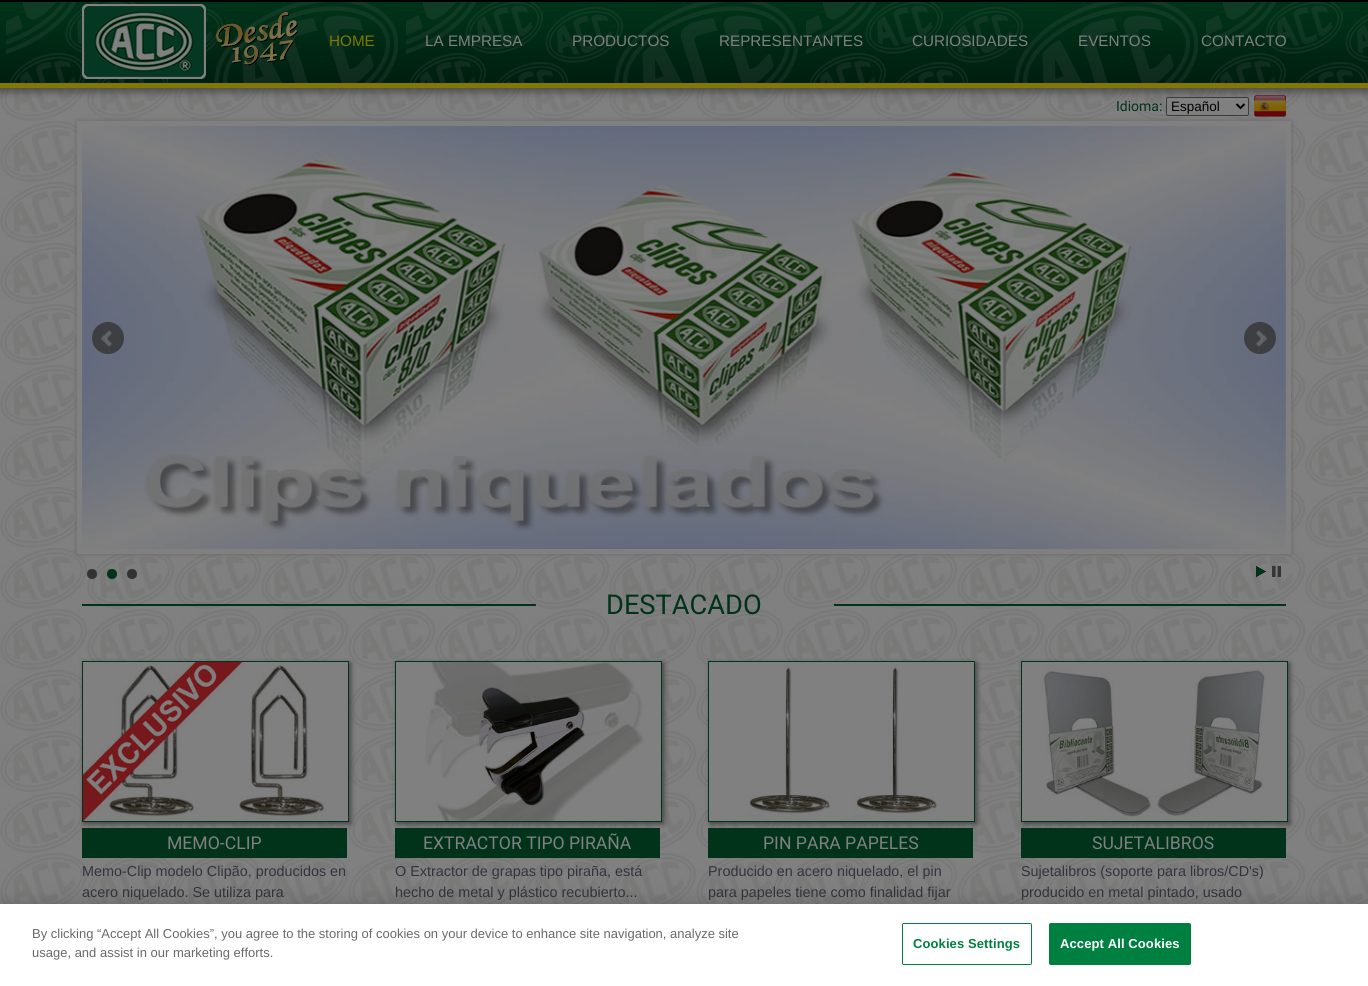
import math
import cairocffi as cairo

surface = cairo.ImageSurface(cairo.FORMAT_RGB24, 1368, 986)
ctx = cairo.Context(surface)
options = cairo.FontOptions()
options.set_hint_metrics(cairo.HINT_METRICS_OFF)
options.set_hint_style(cairo.HINT_STYLE_NONE)
ctx.set_font_options(options)
ctx.set_miter_limit(4)


def rgb(r, g, b):
    ctx.set_source_rgb(r / 255, g / 255, b / 255)


def face(family, size, italic, bold):
    ctx.select_font_face(family, cairo.FONT_SLANT_ITALIC if italic else cairo.FONT_SLANT_NORMAL, cairo.FONT_WEIGHT_BOLD if bold else cairo.FONT_WEIGHT_NORMAL)
    ctx.set_font_size(size)


def label(x, y, s):
    ctx.move_to(x, y)
    ctx.show_text(s)


def tracked(x, y, s, letter, word):
    ctx.move_to(x, y)
    for ch in s:
        ctx.show_text(ch)
        ctx.rel_move_to(letter + word * (ch == ' '), 0)


def rect(x, y, w, h):
    ctx.rectangle(x, y, w, h)
    ctx.fill()


def rrect(x, y, w, h, r):
    ctx.new_sub_path()
    for i, (u, v) in enumerate([(x + w - r, y + h - r), (x + r, y + h - r), (x + r, y + r), (x + w - r, y + r)]):
        ctx.arc(u, v, r, i * math.pi / 2, (i + 1) * math.pi / 2)
    ctx.close_path()


def soft_shadow(x, y, w, h, r, blur, alpha):
    ctx.push_group_with_content(cairo.CONTENT_ALPHA)
    ctx.set_operator(cairo.OPERATOR_SOURCE)
    for i in range(15, -16, -2):
        e = blur * i / 6
        if min(w, h) + 2 * e > 0:
            ctx.set_source_rgba(0, 0, 0, alpha * math.erfc((i - 1) / 8.5) / 2)
            rrect(x - e, y - e, w + 2 * e, h + 2 * e, max(0, min(r + e + blur * .6, min(w, h) / 2 + e)))
            ctx.fill()
    ctx.mask(ctx.pop_group())


def image(path, x, y, w, h):
    ctx.save()
    ctx.set_source_surface(cairo.ImageSurface.create_from_png(path), x, y)
    ctx.rectangle(x, y, w, h)
    ctx.fill()
    ctx.restore()


rgb(255, 255, 255)
ctx.paint()
image('image0.png', 0, 88, 1368, 816)
rgb(60, 60, 60)
soft_shadow(-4, -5, 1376, 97, 0, 4, 0.75)
image('image1.png', 0, 2, 1368, 81)
rgb(0, 0, 0)
rect(0, 0, 1368, 2)
rgb(128, 120, 0)
rect(0, 83, 1368, 5)
image('image2.png', 82, 4, 216, 75)
face('Liberation Sans', 15.25, 0, 0)
label(329, 46, 'HOME')
rgb(128, 128, 128)
label(425, 46, 'LA EMPRESA')
label(572, 46, 'PRODUCTOS')
label(719, 46, 'REPRESENTANTES')
label(912, 46, 'CURIOSIDADES')
label(1078, 46, 'EVENTOS')
label(1201, 46, 'CONTACTO')
face('Roboto', 14, 0, 0)
rgb(0, 51, 26)
label(1116, 111, 'Idioma:')
rgb(128, 128, 128)
rrect(1166.5, 97.5, 82, 18, 1.5)
ctx.fill_preserve()
rgb(59, 59, 59)
ctx.set_line_width(1)
ctx.stroke()
ctx.new_path()
ctx.move_to(1236.5, 104)
ctx.line_to(1240.5, 108)
ctx.line_to(1244.5, 104)
rgb(0, 0, 0)
ctx.set_line_width(2)
ctx.stroke()
face('Liberation Sans', 13.5, 0, 0)
label(1171, 111, 'Español')
image('image3.png', 1254, 95, 32, 22)
rgb(102, 102, 102)
soft_shadow(77, 121, 1214, 433, 0, 2.5, 1)
rgb(128, 128, 128)
rect(77, 121, 1214, 433)
image('image4.png', 82, 126, 1204, 423)
image('image5.png', 92, 322, 32, 32)
image('image6.png', 1244, 322, 32, 32)
rgb(51, 51, 51)
ctx.arc(92, 574, 5, 0, 2 * math.pi)
ctx.fill()
rgb(0, 51, 26)
ctx.arc(112, 574, 5, 0, 2 * math.pi)
ctx.fill()
rgb(51, 51, 51)
ctx.arc(132, 574, 5, 0, 2 * math.pi)
ctx.fill()
image('image7.png', 1256, 566, 10, 11)
image('image8.png', 1272, 566, 9, 11)
image('image9.png', 82, 604, 1204, 2)
face('Roboto', 27.25, 0, 0)
rgb(0, 51, 26)
label(606, 614, 'DESTACADO')
rect(82, 828, 265, 30)
rgb(68, 68, 68)
soft_shadow(84, 663, 267, 161, 0, 2.5, 1)
ctx.rectangle(82.5, 661.5, 266, 160)
rgb(0, 51, 26)
ctx.set_line_width(1)
ctx.stroke()
image('image10.png', 83, 662, 265, 159)
face('Roboto', 17.6, 0, 0)
rgb(128, 128, 128)
label(167, 849, 'MEMO-CLIP')
face('Liberation Sans', 14.4, 0, 0)
rgb(51, 51, 60)
label(82, 876, 'Memo-Clip modelo Clipão, producidos en')
label(82, 897, 'acero niquelado. Se utiliza para')
rgb(0, 51, 26)
rect(395, 828, 265, 30)
rgb(68, 68, 68)
soft_shadow(397, 663, 267, 161, 0, 2.5, 1)
ctx.rectangle(395.5, 661.5, 266, 160)
rgb(0, 51, 26)
ctx.stroke()
image('image11.png', 396, 662, 265, 159)
face('Roboto', 17.6, 0, 0)
rgb(128, 128, 128)
label(423, 849, 'EXTRACTOR TIPO PIRAÑA')
face('Liberation Sans', 14.4, 0, 0)
rgb(51, 51, 60)
label(395, 876, 'O Extractor de grapas tipo piraña, está')
label(395, 897, 'hecho de metal y plástico recubierto...')
rgb(0, 51, 26)
rect(708, 828, 265, 30)
rgb(68, 68, 68)
soft_shadow(710, 663, 267, 161, 0, 2.5, 1)
ctx.rectangle(708.5, 661.5, 266, 160)
rgb(0, 51, 26)
ctx.stroke()
image('image12.png', 709, 662, 265, 159)
face('Roboto', 17.6, 0, 0)
rgb(128, 128, 128)
label(763, 849, 'PIN PARA PAPELES')
face('Liberation Sans', 14.4, 0, 0)
rgb(51, 51, 60)
label(708, 876, 'Producido en acero niquelado, el pin')
label(708, 897, 'para papeles tiene como finalidad fijar')
rgb(0, 51, 26)
rect(1021, 828, 265, 30)
rgb(68, 68, 68)
soft_shadow(1023, 663, 267, 161, 0, 2.5, 1)
ctx.rectangle(1021.5, 661.5, 266, 160)
rgb(0, 51, 26)
ctx.stroke()
image('image13.png', 1022, 662, 265, 159)
face('Roboto', 17.6, 0, 0)
rgb(128, 128, 128)
label(1092, 849, 'SUJETALIBROS')
face('Liberation Sans', 14.4, 0, 0)
rgb(51, 51, 60)
label(1021, 876, 'Sujetalibros (soporte para libros/CD\'s)')
label(1021, 897, 'producido en metal pintado, usado')
rgb(0, 0, 0)
soft_shadow(0, 904, 1368, 82, 0, 9, 0.2)
rgb(255, 255, 255)
rect(0, 904, 1368, 82)
face('Liberation Sans', 13, 0, 0)
rgb(105, 105, 105)
label(32, 938, 'By clicking “Accept All Cookies”, you agree to the storing of cookies on your device to enhance site navigation, analyze site')
label(32, 957, 'usage, and assist in our marketing efforts.')
rrect(902.5, 923.5, 129, 41, 1.5)
rgb(0, 128, 64)
ctx.stroke()
face('Liberation Sans', 13, 0, 1)
tracked(913, 948, 'Cookies Settings', 0.1, 0)
rrect(1049.5, 923.5, 141, 41, 1.5)
ctx.fill_preserve()
ctx.stroke()
rgb(255, 255, 255)
tracked(1060, 948, 'Accept All Cookies', 0.1, 0)
surface.write_to_png('render.png')
